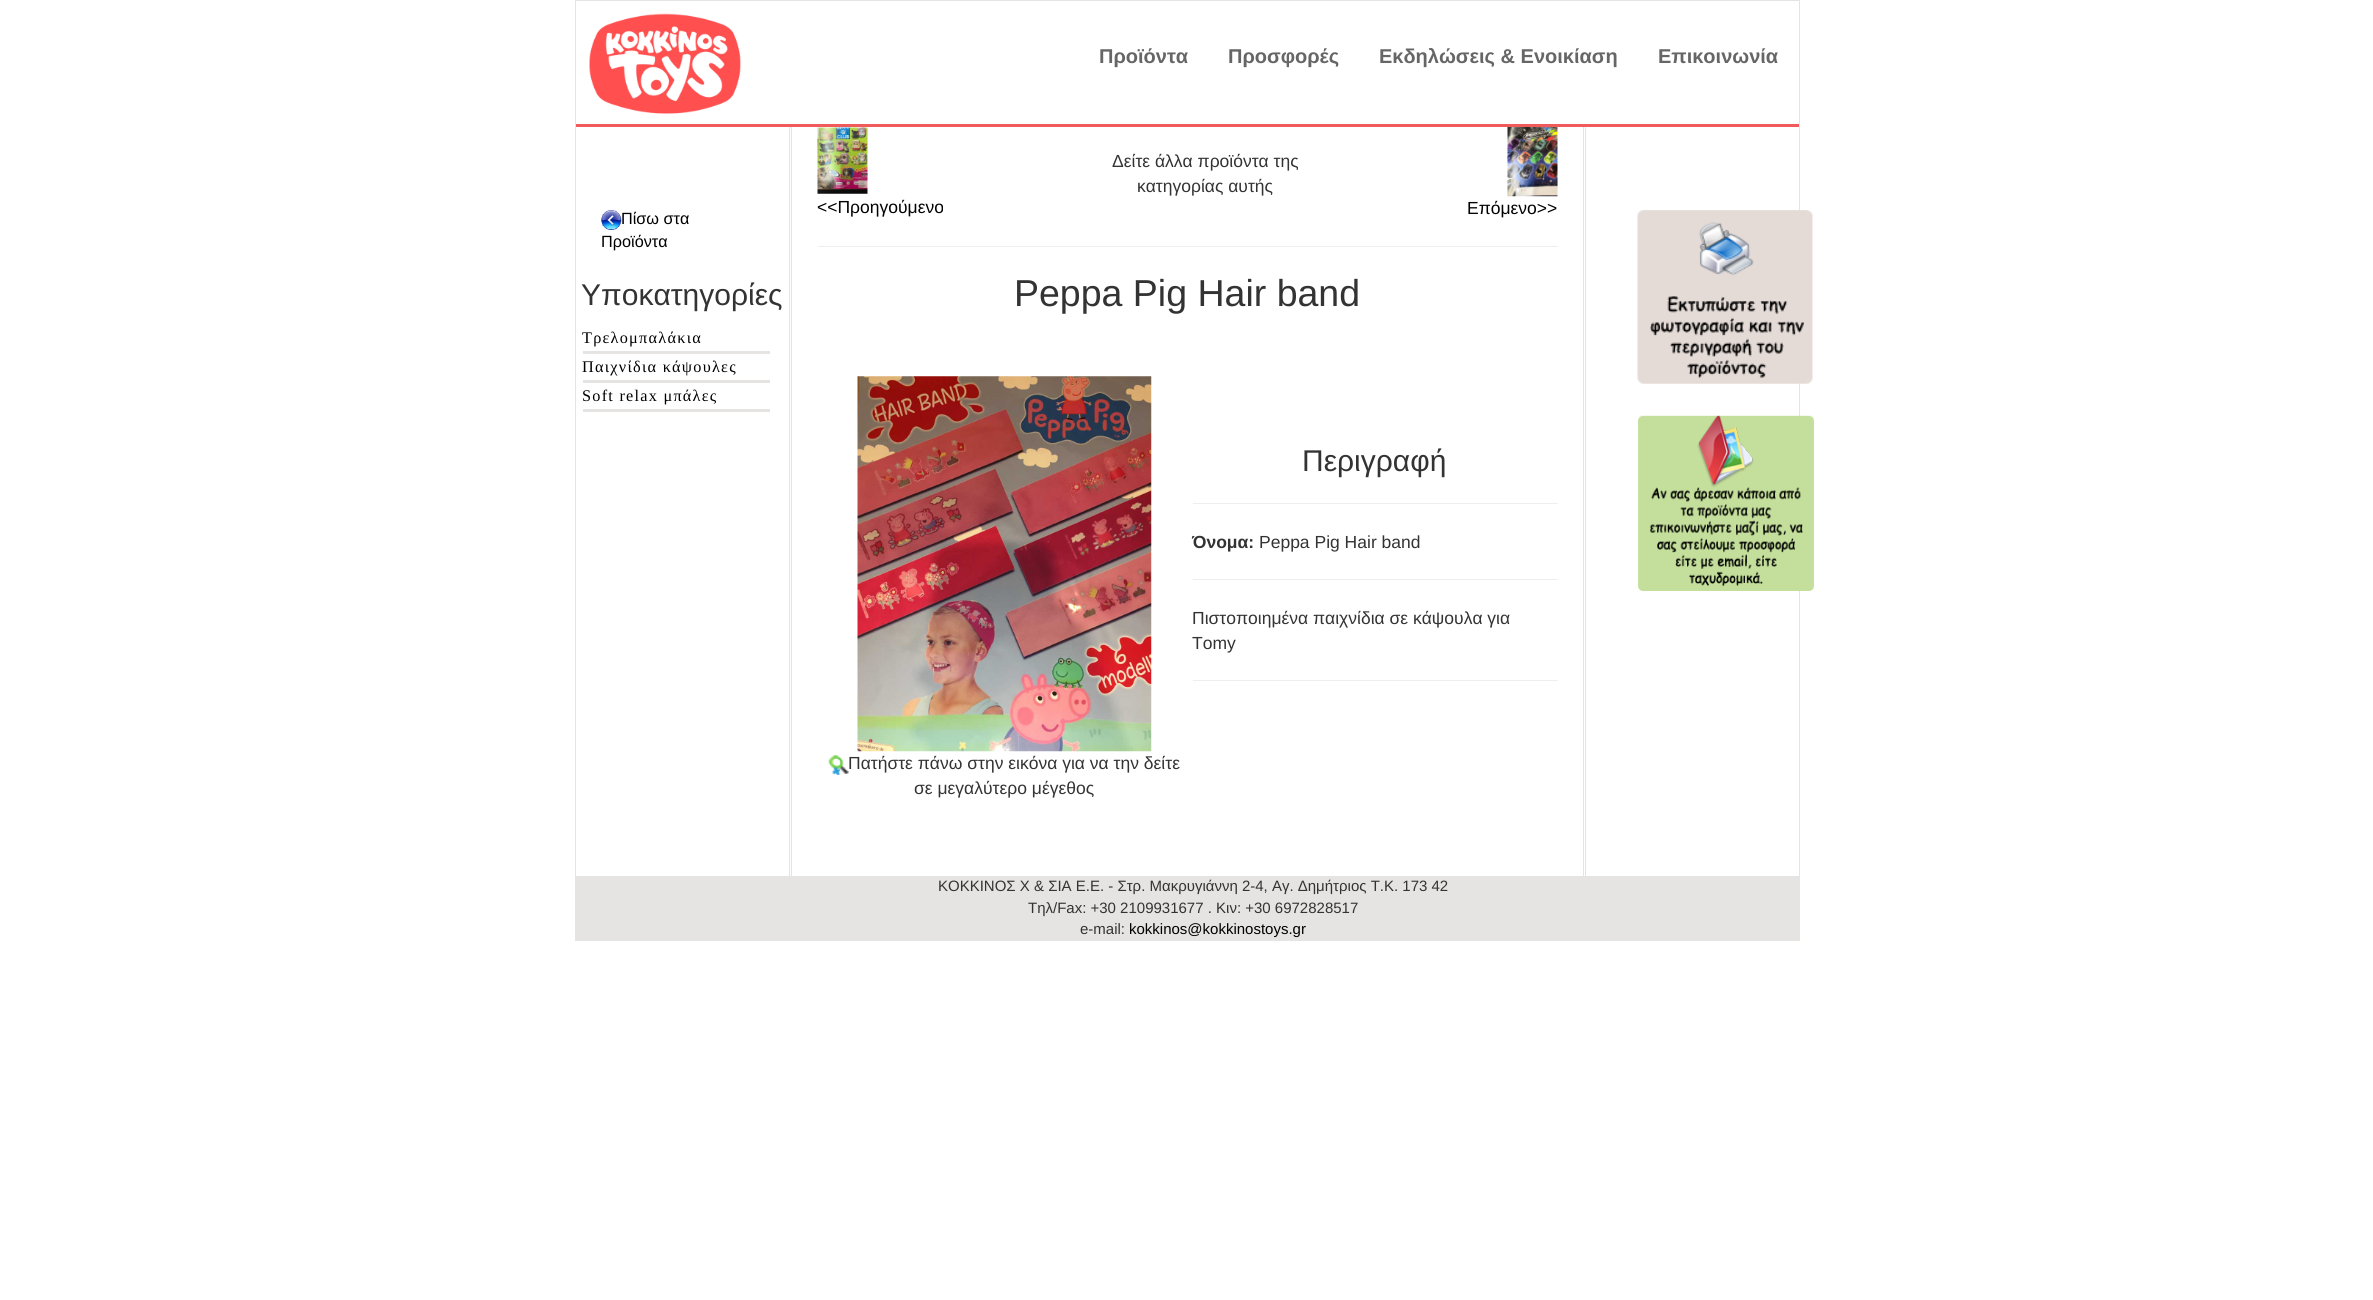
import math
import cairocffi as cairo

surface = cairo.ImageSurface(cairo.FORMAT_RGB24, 2373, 1300)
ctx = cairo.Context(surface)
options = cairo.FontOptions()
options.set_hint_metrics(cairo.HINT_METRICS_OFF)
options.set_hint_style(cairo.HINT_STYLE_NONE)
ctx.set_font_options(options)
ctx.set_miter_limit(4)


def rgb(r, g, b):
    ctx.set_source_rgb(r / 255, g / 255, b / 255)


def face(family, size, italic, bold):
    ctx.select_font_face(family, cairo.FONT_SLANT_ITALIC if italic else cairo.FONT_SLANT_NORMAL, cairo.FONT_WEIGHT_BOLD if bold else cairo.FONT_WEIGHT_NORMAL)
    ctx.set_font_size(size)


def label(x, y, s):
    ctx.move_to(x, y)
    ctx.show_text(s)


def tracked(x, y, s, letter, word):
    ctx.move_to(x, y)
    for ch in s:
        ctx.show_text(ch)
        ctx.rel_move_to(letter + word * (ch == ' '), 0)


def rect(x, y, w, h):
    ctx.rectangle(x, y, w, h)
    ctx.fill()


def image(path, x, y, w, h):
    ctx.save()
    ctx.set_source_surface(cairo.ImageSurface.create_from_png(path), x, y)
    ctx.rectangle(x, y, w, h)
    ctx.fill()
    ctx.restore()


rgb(255, 255, 255)
ctx.paint()
ctx.rectangle(575.5, 0.5, 1224, 940)
rgb(229, 228, 226)
ctx.set_line_width(1)
ctx.stroke()
rect(1583, 126, 1, 750)
rect(1585, 126, 1, 750)
rect(789, 126, 1, 750)
rect(791, 126, 1, 750)
rgb(240, 90, 91)
rect(576, 124, 1223, 3)
image('image0.png', 589, 13, 152, 101)
face('Liberation Sans', 20, 0, 1)
rgb(102, 102, 102)
label(1099, 63, 'Προϊόντα')
label(1228, 63, 'Προσφορές')
label(1379, 63, 'Εκδηλώσεις & Ενοικίαση')
label(1658, 63, 'Επικοινωνία')
image('image1.png', 601, 210, 21, 20)
face('Liberation Sans', 16.25, 0, 0)
rgb(0, 0, 0)
label(621, 224, 'Πίσω στα')
label(601, 247, 'Προϊόντα')
face('Liberation Sans', 30, 0, 0)
rgb(51, 51, 51)
label(581, 305, 'Υποκατηγορίες')
rgb(229, 228, 226)
rect(583, 351, 187, 3)
face('Liberation Serif', 16.25, 0, 0)
rgb(0, 0, 0)
tracked(582, 343, 'Τρελομπαλάκια', 1.25, 0)
rgb(229, 228, 226)
rect(583, 380, 187, 3)
rgb(0, 0, 0)
tracked(582, 372, 'Παιχνίδια κάψουλες', 1.25, 0)
rgb(229, 228, 226)
rect(583, 409, 187, 3)
rgb(0, 0, 0)
tracked(582, 401, 'Soft relax μπάλες', 1.25, 0)
face('Liberation Sans', 17.5, 0, 0)
rgb(51, 51, 51)
label(1112, 167, 'Δείτε άλλα προϊόντα της')
label(1137, 192, 'κατηγορίας αυτής')
image('image2.png', 817, 127, 51, 67)
rgb(0, 0, 0)
label(817, 213, '<<Προηγούμενο')
image('image3.png', 1507, 127, 51, 70)
label(1467, 214, 'Επόμενο>>')
rgb(238, 238, 238)
rect(818, 246, 740, 1)
face('Liberation Sans', 37.5, 0, 0)
rgb(51, 51, 51)
label(1014, 306, 'Peppa Pig Hair band')
face('Liberation Sans', 30, 0, 0)
label(1302, 471, 'Περιγραφή')
rgb(238, 238, 238)
rect(1193, 503, 365, 1)
face('Liberation Sans', 17.5, 0, 1)
rgb(51, 51, 51)
label(1192, 548, 'Όνομα:')
face('Liberation Sans', 17.5, 0, 0)
label(1259, 548, 'Peppa Pig Hair band')
rgb(238, 238, 238)
rect(1193, 579, 365, 1)
rgb(51, 51, 51)
label(1192, 624, 'Πιστοποιημένα παιχνίδια σε κάψουλα για')
label(1192, 649, 'Tomy')
rgb(238, 238, 238)
rect(1193, 680, 365, 1)
image('image4.png', 857, 376, 295, 376)
image('image5.png', 828, 755, 21, 20)
rgb(51, 51, 51)
label(848, 769, 'Πατήστε πάνω στην εικόνα για να την δείτε')
label(914, 794, 'σε μεγαλύτερο μέγεθος')
image('image6.png', 1637, 210, 176, 174)
image('image7.png', 1638, 415, 176, 176)
rgb(229, 228, 226)
rect(576, 876, 1223, 64)
face('Liberation Sans', 15, 0, 0)
rgb(51, 51, 51)
label(938, 891, 'ΚΟΚΚΙΝΟΣ Χ & ΣΙΑ Ε.Ε. - Στρ. Μακρυγιάννη 2-4, Αγ. Δημήτριος Τ.Κ. 173 42')
label(1028, 913, 'Τηλ/Fax: +30 2109931677 . Κιν: +30 6972828517')
label(1080, 934, 'e-mail:')
rgb(0, 0, 0)
label(1129, 934, 'kokkinos@kokkinostoys.gr')
surface.write_to_png('render.png')
